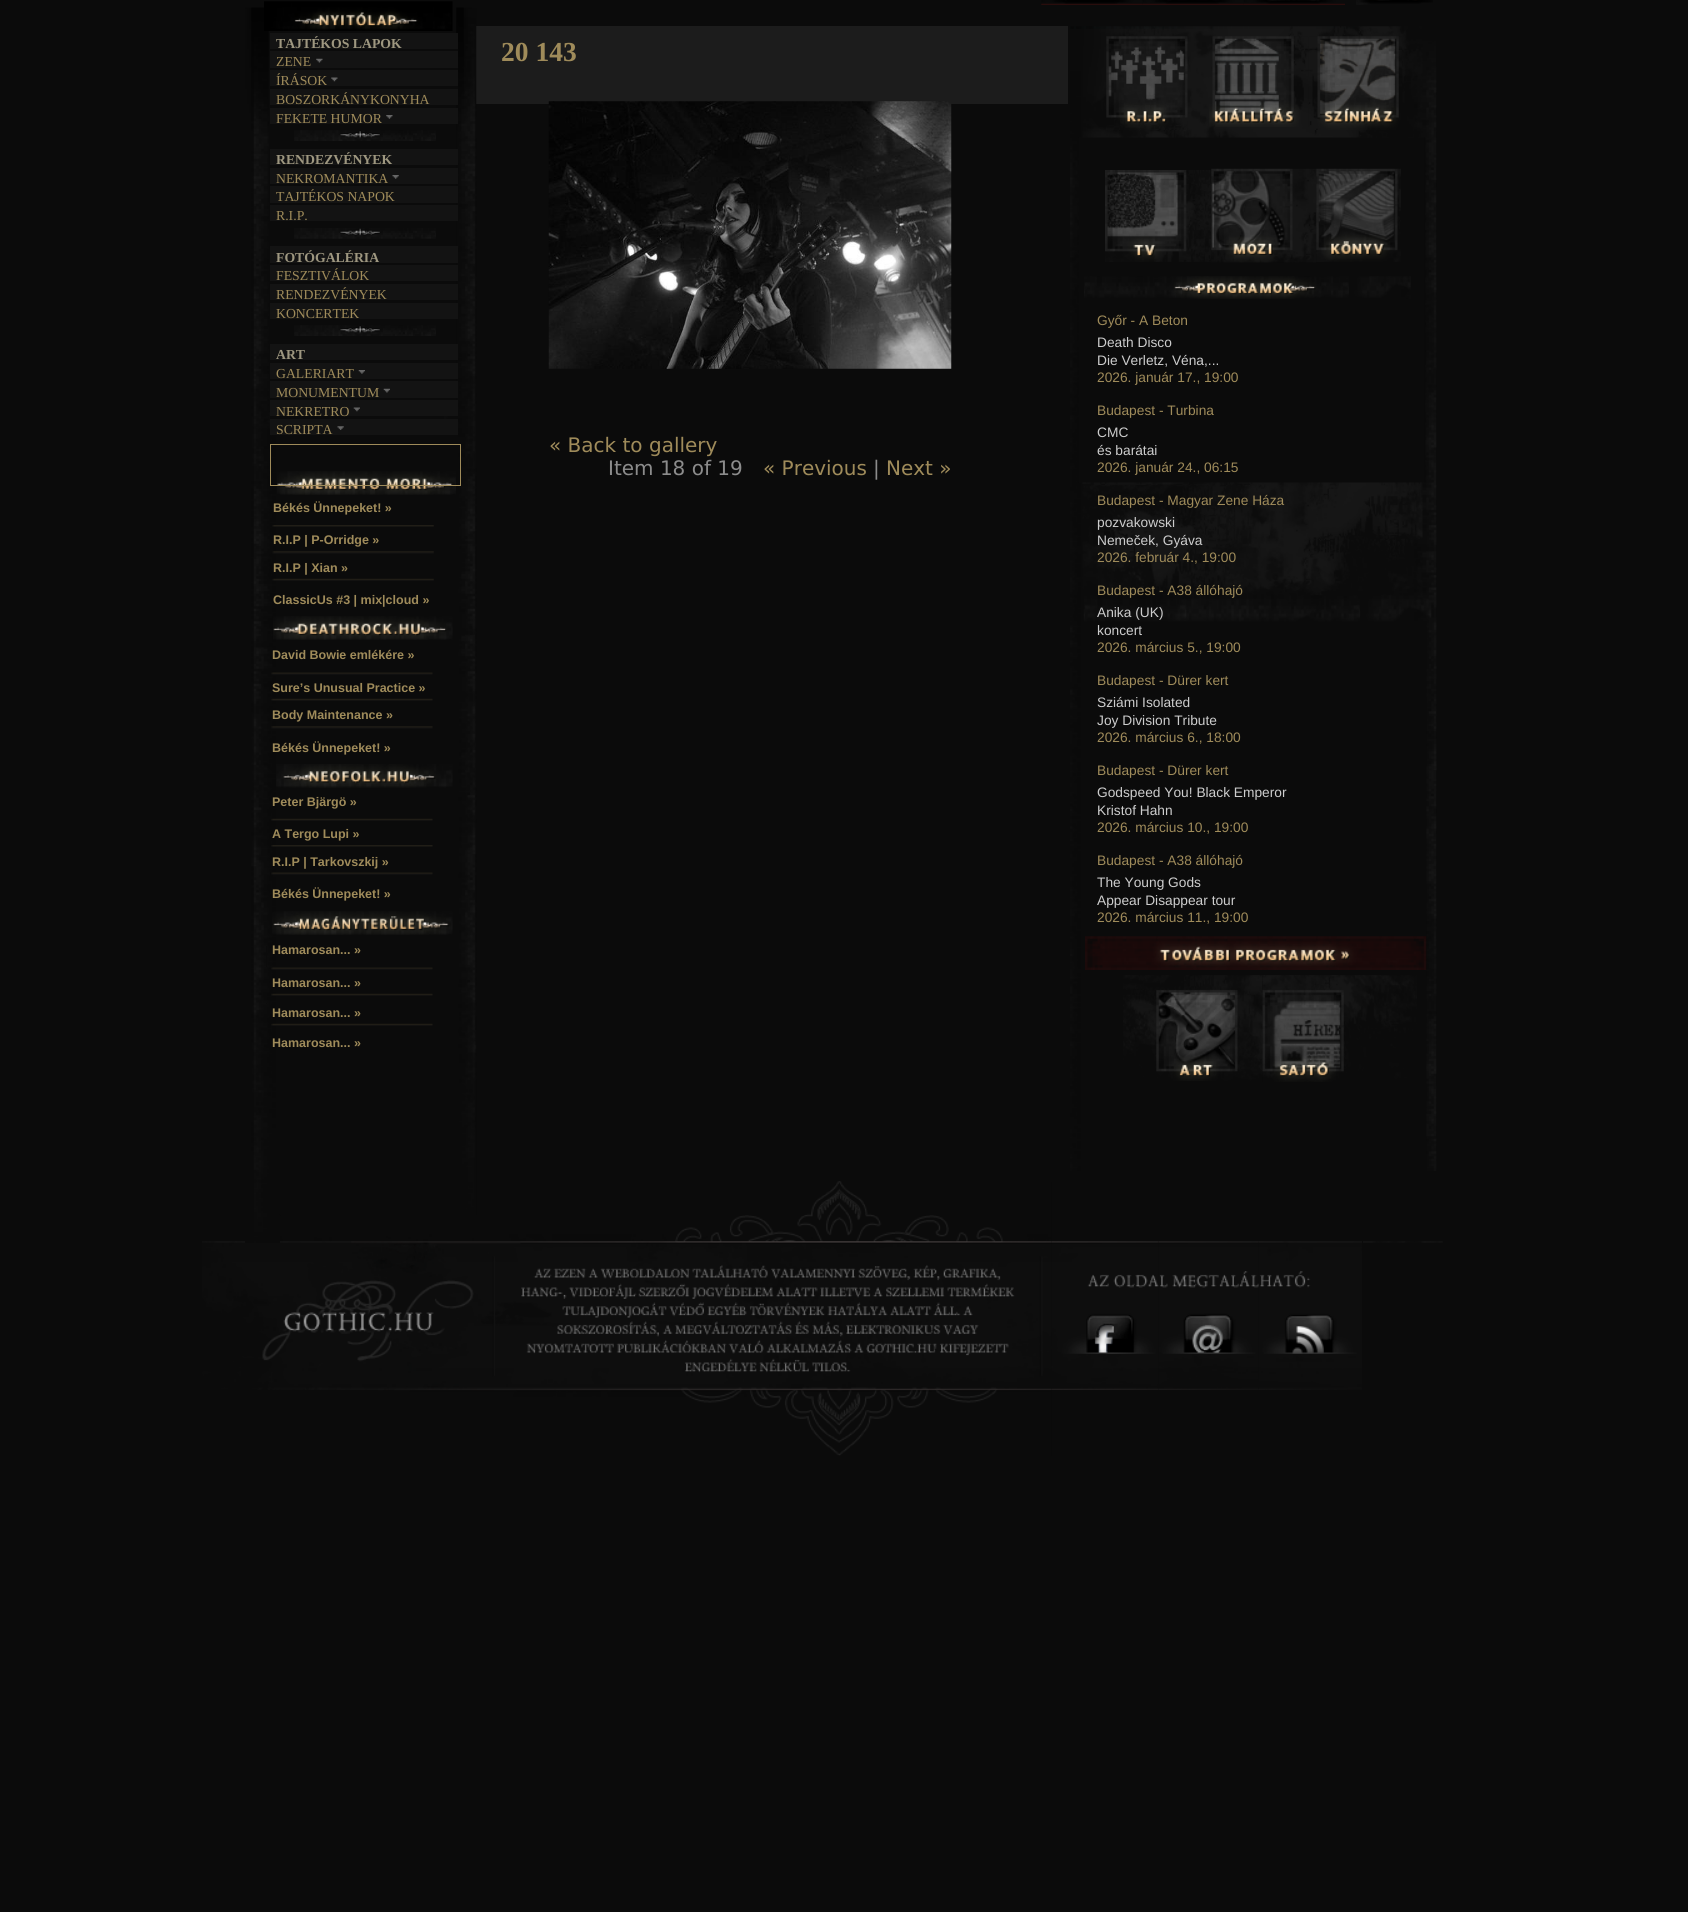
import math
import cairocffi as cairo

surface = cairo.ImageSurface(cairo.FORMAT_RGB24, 1688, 1912)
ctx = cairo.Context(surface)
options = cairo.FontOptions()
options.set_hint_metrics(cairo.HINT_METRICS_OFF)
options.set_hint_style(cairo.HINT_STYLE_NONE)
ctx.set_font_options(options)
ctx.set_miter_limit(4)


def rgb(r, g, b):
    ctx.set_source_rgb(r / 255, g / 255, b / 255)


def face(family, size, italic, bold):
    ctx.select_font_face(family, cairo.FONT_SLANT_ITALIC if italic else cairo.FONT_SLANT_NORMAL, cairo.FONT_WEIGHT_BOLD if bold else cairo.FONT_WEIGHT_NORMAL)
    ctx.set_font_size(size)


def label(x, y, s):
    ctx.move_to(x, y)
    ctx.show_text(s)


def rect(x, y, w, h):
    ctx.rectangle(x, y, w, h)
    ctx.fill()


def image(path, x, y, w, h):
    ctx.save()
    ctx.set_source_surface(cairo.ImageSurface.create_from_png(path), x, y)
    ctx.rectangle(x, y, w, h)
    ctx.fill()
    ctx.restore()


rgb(11, 11, 11)
ctx.paint()
image('image0.png', 1041, 0, 102, 5)
image('image1.png', 1142, 0, 102, 5)
image('image2.png', 1243, 0, 102, 5)
image('image3.png', 1356, 0, 77, 5)
rgb(28, 28, 28)
rect(476, 26, 592, 78)
image('image41.png', 202, 1181, 850, 275)
image('image5.png', 245, 7, 232, 1236)
image('image4.png', 264, 1, 189, 30)
rgb(19, 19, 19)
rect(270, 33, 188, 16)
rgb(11, 11, 11)
rect(456, 49, 2, 2)
face('Liberation Serif', 13.75, 0, 1)
rgb(158, 151, 128)
label(276, 48, 'TAJTÉKOS LAPOK')
rgb(11, 11, 11)
rect(456, 68, 2, 2)
rgb(19, 19, 19)
rect(270, 51, 188, 17)
face('Liberation Serif', 13.75, 0, 0)
rgb(159, 139, 90)
label(276, 66, 'ZENE')
image('image6.png', 316, 58, 7, 5)
rgb(11, 11, 11)
rect(456, 86, 2, 3)
rgb(19, 19, 19)
rect(270, 70, 188, 16)
rgb(159, 139, 90)
label(276, 85, 'ÍRÁSOK')
image('image7.png', 331, 77, 7, 5)
rgb(19, 19, 19)
rect(270, 89, 188, 16)
rgb(159, 139, 90)
label(276, 104, 'BOSZORKÁNYKONYHA')
rgb(19, 19, 19)
rect(270, 108, 188, 16)
rgb(159, 139, 90)
label(276, 123, 'FEKETE HUMOR')
image('image8.png', 386, 115, 7, 4)
image('image9.png', 294, 130, 142, 11)
rgb(19, 19, 19)
rect(270, 149, 188, 16)
face('Liberation Serif', 13.75, 0, 1)
rgb(158, 151, 128)
label(276, 164, 'RENDEZVÉNYEK')
rgb(19, 19, 19)
rect(270, 168, 188, 16)
face('Liberation Serif', 13.75, 0, 0)
rgb(159, 139, 90)
label(276, 183, 'NEKROMANTIKA')
image('image10.png', 392, 175, 7, 4)
rgb(19, 19, 19)
rect(270, 186, 188, 17)
rgb(159, 139, 90)
label(276, 201, 'TAJTÉKOS NAPOK')
rgb(19, 19, 19)
rect(270, 205, 188, 16)
rgb(159, 139, 90)
label(276, 220, 'R.I.P.')
image('image11.png', 294, 228, 142, 11)
rgb(19, 19, 19)
rect(270, 246, 188, 17)
face('Liberation Serif', 13.75, 0, 1)
rgb(158, 151, 128)
label(276, 262, 'FOTÓGALÉRIA')
rgb(19, 19, 19)
rect(270, 265, 188, 16)
face('Liberation Serif', 13.75, 0, 0)
rgb(159, 139, 90)
label(276, 280, 'FESZTIVÁLOK')
rgb(19, 19, 19)
rect(270, 284, 188, 16)
rgb(159, 139, 90)
label(276, 299, 'RENDEZVÉNYEK')
rgb(19, 19, 19)
rect(270, 303, 188, 16)
rgb(159, 139, 90)
label(276, 318, 'KONCERTEK')
image('image9.png', 294, 325, 142, 11)
rgb(19, 19, 19)
rect(270, 344, 188, 16)
face('Liberation Serif', 13.75, 0, 1)
rgb(158, 151, 128)
label(276, 359, 'ART')
rgb(19, 19, 19)
rect(270, 363, 188, 16)
face('Liberation Serif', 13.75, 0, 0)
rgb(159, 139, 90)
label(276, 378, 'GALERIART')
image('image12.png', 358, 370, 7, 4)
rgb(19, 19, 19)
rect(270, 381, 188, 17)
rgb(159, 139, 90)
label(276, 397, 'MONUMENTUM')
image('image13.png', 383, 388, 7, 5)
rgb(11, 11, 11)
rect(270, 416, 174, 3)
rgb(19, 19, 19)
rect(270, 400, 188, 16)
rgb(159, 139, 90)
label(276, 416, 'NEKRETRO')
image('image14.png', 353, 407, 7, 5)
rgb(19, 19, 19)
rect(270, 419, 188, 16)
rgb(159, 139, 90)
label(276, 434, 'SCRIPTA')
image('image15.png', 337, 426, 7, 4)
image('image16.png', 277, 471, 179, 24)
ctx.rectangle(270.5, 444.5, 190, 41)
ctx.set_line_width(1)
ctx.stroke()
face('Liberation Sans', 12.5, 0, 1)
label(273, 512, 'Békés Ünnepeket! »')
image('image17.png', 272, 525, 162, 2)
label(273, 544, 'R.I.P | P-Orridge »')
image('image18.png', 272, 551, 162, 3)
label(273, 572, 'R.I.P | Xian »')
image('image19.png', 272, 578, 162, 3)
label(273, 604, 'ClassicUs #3 | mix|cloud »')
image('image20.png', 273, 616, 180, 24)
label(272, 659, 'David Bowie emlékére »')
image('image21.png', 271, 672, 162, 3)
label(272, 692, 'Sure’s Unusual Practice »')
image('image22.png', 271, 698, 162, 3)
label(272, 719, 'Body Maintenance »')
image('image23.png', 271, 726, 162, 3)
label(272, 752, 'Békés Ünnepeket! »')
image('image24.png', 276, 764, 177, 24)
label(272, 806, 'Peter Bjärgö »')
image('image22.png', 271, 818, 162, 3)
label(272, 838, 'A Tergo Lupi »')
image('image25.png', 271, 845, 162, 2)
label(272, 866, 'R.I.P | Tarkovszkij »')
image('image26.png', 271, 872, 162, 3)
label(272, 898, 'Békés Ünnepeket! »')
image('image27.png', 272, 911, 181, 24)
rgb(11, 11, 11)
rect(266, 946, 1, 21)
rgb(159, 139, 90)
label(272, 954, 'Hamarosan... »')
image('image28.png', 271, 967, 162, 3)
rgb(11, 11, 11)
rect(266, 1003, 1, 1)
rgb(159, 139, 90)
label(272, 987, 'Hamarosan... »')
image('image22.png', 271, 993, 162, 3)
label(272, 1017, 'Hamarosan... »')
image('image22.png', 271, 1023, 162, 3)
label(272, 1047, 'Hamarosan... »')
image('image29.png', 1070, 26, 367, 1145)
image('image30.png', 1106, 36, 82, 94)
image('image31.png', 1209, 36, 100, 91)
image('image32.png', 1309, 36, 93, 94)
image('image33.png', 1105, 170, 106, 92)
image('image34.png', 1211, 168, 105, 95)
image('image35.png', 1316, 168, 85, 94)
image('image36.png', 1084, 276, 327, 23)
face('Liberation Sans', 13.75, 0, 0)
label(1097, 325, 'Győr - A Beton')
rgb(205, 205, 205)
label(1097, 347, 'Death Disco')
label(1097, 365, 'Die Verletz, Véna,...')
rgb(159, 139, 90)
label(1097, 382, '2026. január 17., 19:00')
label(1097, 415, 'Budapest - Turbina')
rgb(205, 205, 205)
label(1097, 437, 'CMC')
label(1097, 455, 'és barátai')
rgb(159, 139, 90)
label(1097, 472, '2026. január 24., 06:15')
label(1097, 505, 'Budapest - Magyar Zene Háza')
rgb(205, 205, 205)
label(1097, 527, 'pozvakowski')
label(1097, 545, 'Nemeček, Gyáva')
rgb(159, 139, 90)
label(1097, 562, '2026. február 4., 19:00')
label(1097, 595, 'Budapest - A38 állóhajó')
rgb(205, 205, 205)
label(1097, 617, 'Anika (UK)')
label(1097, 635, 'koncert')
rgb(159, 139, 90)
label(1097, 652, '2026. március 5., 19:00')
label(1097, 685, 'Budapest - Dürer kert')
rgb(205, 205, 205)
label(1097, 707, 'Sziámi Isolated')
label(1097, 725, 'Joy Division Tribute')
rgb(159, 139, 90)
label(1097, 742, '2026. március 6., 18:00')
label(1097, 775, 'Budapest - Dürer kert')
rgb(205, 205, 205)
label(1097, 797, 'Godspeed You! Black Emperor')
label(1097, 815, 'Kristof Hahn')
rgb(159, 139, 90)
label(1097, 832, '2026. március 10., 19:00')
label(1097, 865, 'Budapest - A38 állóhajó')
rgb(205, 205, 205)
label(1097, 887, 'The Young Gods')
label(1097, 905, 'Appear Disappear tour')
rgb(159, 139, 90)
label(1097, 922, '2026. március 11., 19:00')
image('image37.png', 1085, 936, 342, 34)
image('image38.png', 1123, 975, 140, 106)
image('image39.png', 1262, 975, 155, 107)
face('Liberation Serif', 27.5, 0, 1)
label(501, 61, '20 143')
image('image40.png', 548, 101, 404, 268)
face('DejaVu Sans', 20, 0, 0)
label(549, 452, '« Back to gallery')
rgb(140, 140, 140)
label(608, 475, 'Item 18 of 19')
rgb(159, 139, 90)
label(763, 475, '« Previous')
rgb(140, 140, 140)
label(873, 475, '|')
rgb(159, 139, 90)
label(886, 475, 'Next »')
image('image42.png', 1051, 1241, 108, 149)
image('image43.png', 1159, 1241, 100, 149)
image('image44.png', 1258, 1241, 104, 149)
image('image45.png', 1363, 1241, 80, 2)
surface.write_to_png('render.png')
